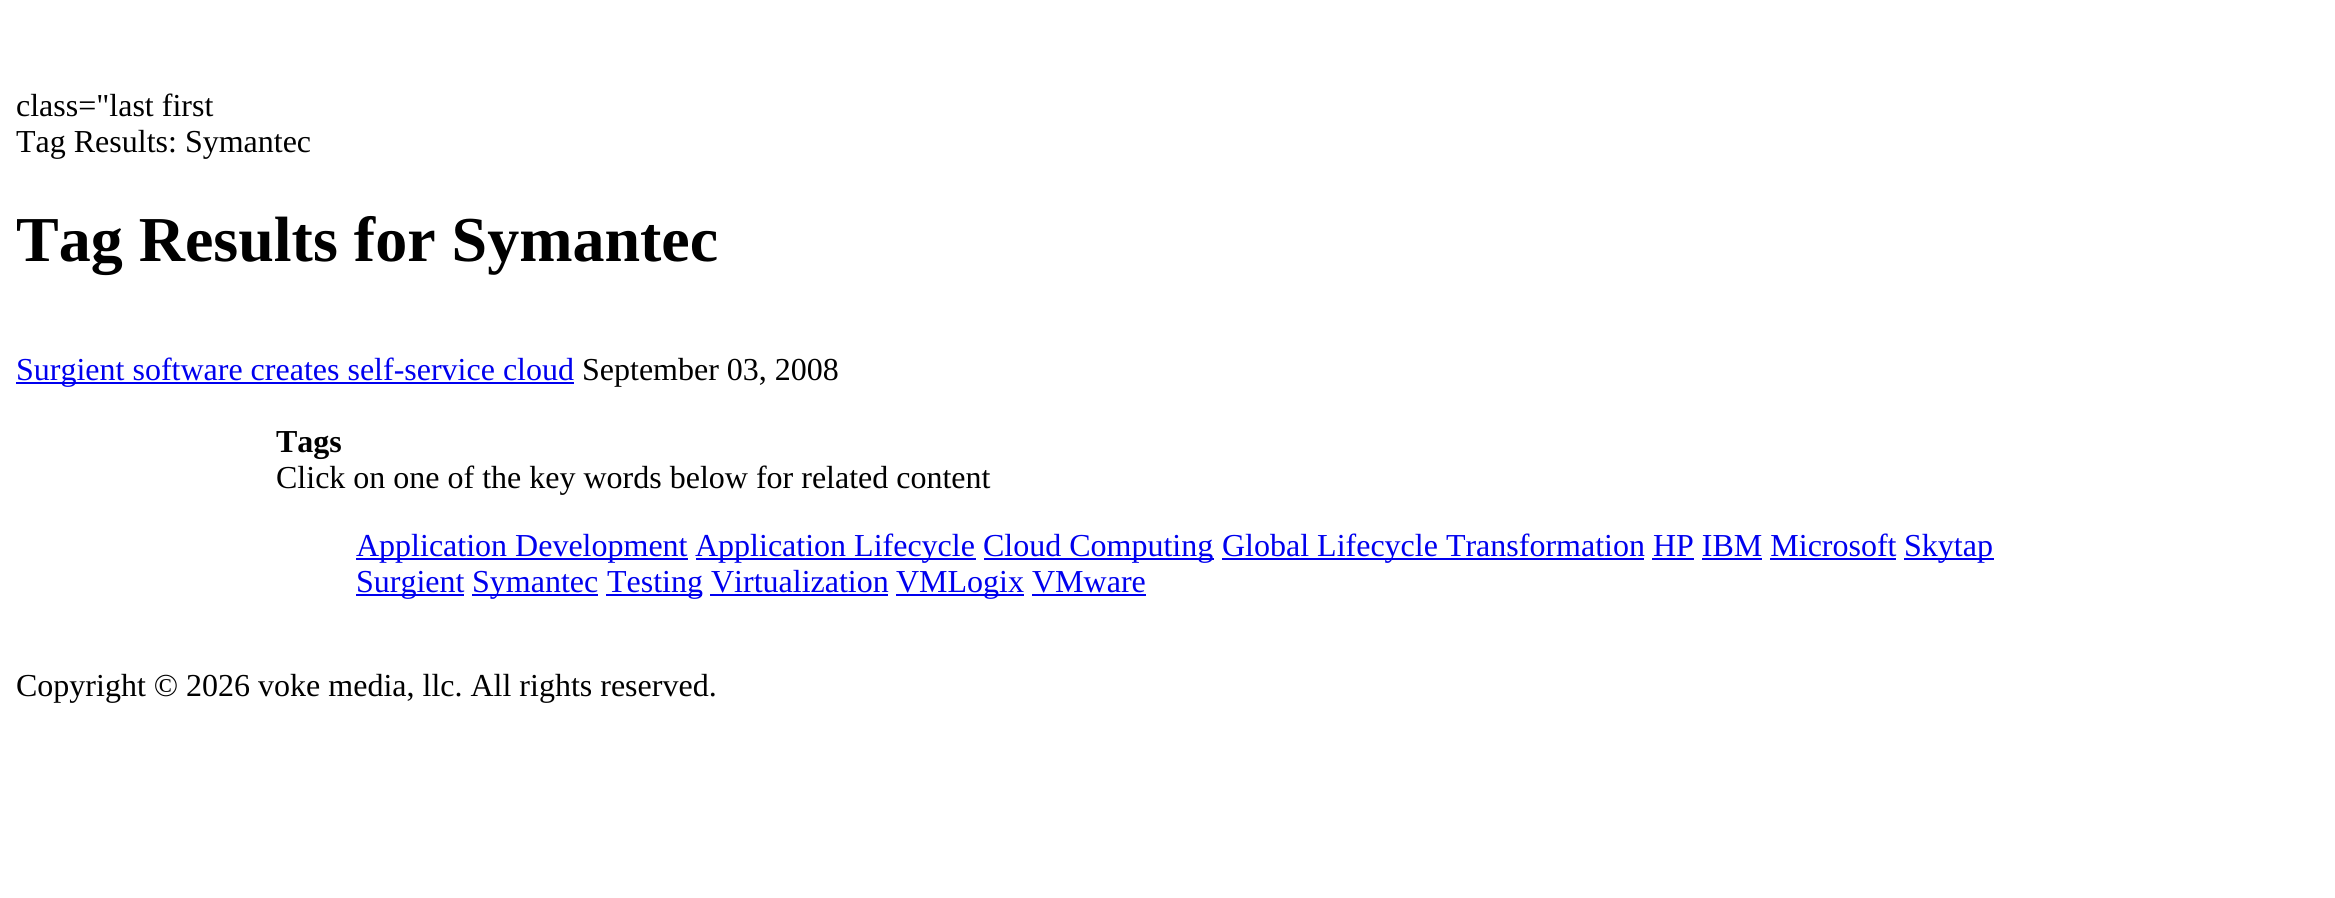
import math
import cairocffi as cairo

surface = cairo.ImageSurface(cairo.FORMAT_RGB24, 2335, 898)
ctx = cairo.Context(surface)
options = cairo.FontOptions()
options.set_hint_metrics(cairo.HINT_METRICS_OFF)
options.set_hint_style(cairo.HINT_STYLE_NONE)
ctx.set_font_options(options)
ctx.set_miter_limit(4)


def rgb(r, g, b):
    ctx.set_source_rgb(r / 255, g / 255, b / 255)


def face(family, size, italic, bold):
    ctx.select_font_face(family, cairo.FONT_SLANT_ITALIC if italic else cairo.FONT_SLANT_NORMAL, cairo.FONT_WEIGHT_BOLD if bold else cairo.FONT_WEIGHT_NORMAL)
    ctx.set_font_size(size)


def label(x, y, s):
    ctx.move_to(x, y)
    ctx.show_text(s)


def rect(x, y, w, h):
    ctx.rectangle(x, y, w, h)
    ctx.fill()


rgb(255, 255, 255)
ctx.paint()
face('Liberation Serif', 32, 0, 0)
rgb(0, 0, 0)
label(16, 116, 'class="last first')
label(16, 152, 'Tag Results: Symantec')
face('Liberation Serif', 64, 0, 1)
label(16, 261, 'Tag Results for Symantec')
rgb(0, 0, 238)
rect(16, 382, 558, 2)
face('Liberation Serif', 32, 0, 0)
label(16, 380, 'Surgient software creates self-service cloud')
rgb(0, 0, 0)
label(582, 380, 'September 03, 2008')
face('Liberation Serif', 32, 0, 1)
label(276, 452, 'Tags')
face('Liberation Serif', 32, 0, 0)
label(276, 488, 'Click on one of the key words below for related content')
rgb(0, 0, 238)
rect(356, 558, 332, 2)
label(356, 556, 'Application Development')
rect(696, 558, 280, 2)
label(695, 556, 'Application Lifecycle')
rect(984, 558, 230, 2)
label(983, 556, 'Cloud Computing')
rect(1222, 558, 422, 2)
label(1222, 556, 'Global Lifecycle Transformation HP IBM Microsoft')
rect(1904, 558, 90, 2)
label(1904, 556, 'Skytap')
rect(1652, 558, 42, 2)
rect(1702, 558, 60, 2)
rect(1770, 558, 126, 2)
rect(356, 594, 108, 2)
label(356, 592, 'Surgient')
rect(472, 594, 126, 2)
label(472, 592, 'Symantec')
rect(606, 594, 96, 2)
label(607, 592, 'Testing Virtualization')
rect(896, 594, 128, 2)
label(896, 592, 'VMLogix VMware')
rect(710, 594, 178, 2)
rect(1032, 594, 114, 2)
rgb(0, 0, 0)
label(16, 696, 'Copyright © 2026 voke media, llc. All rights reserved.')
surface.write_to_png('render.png')
